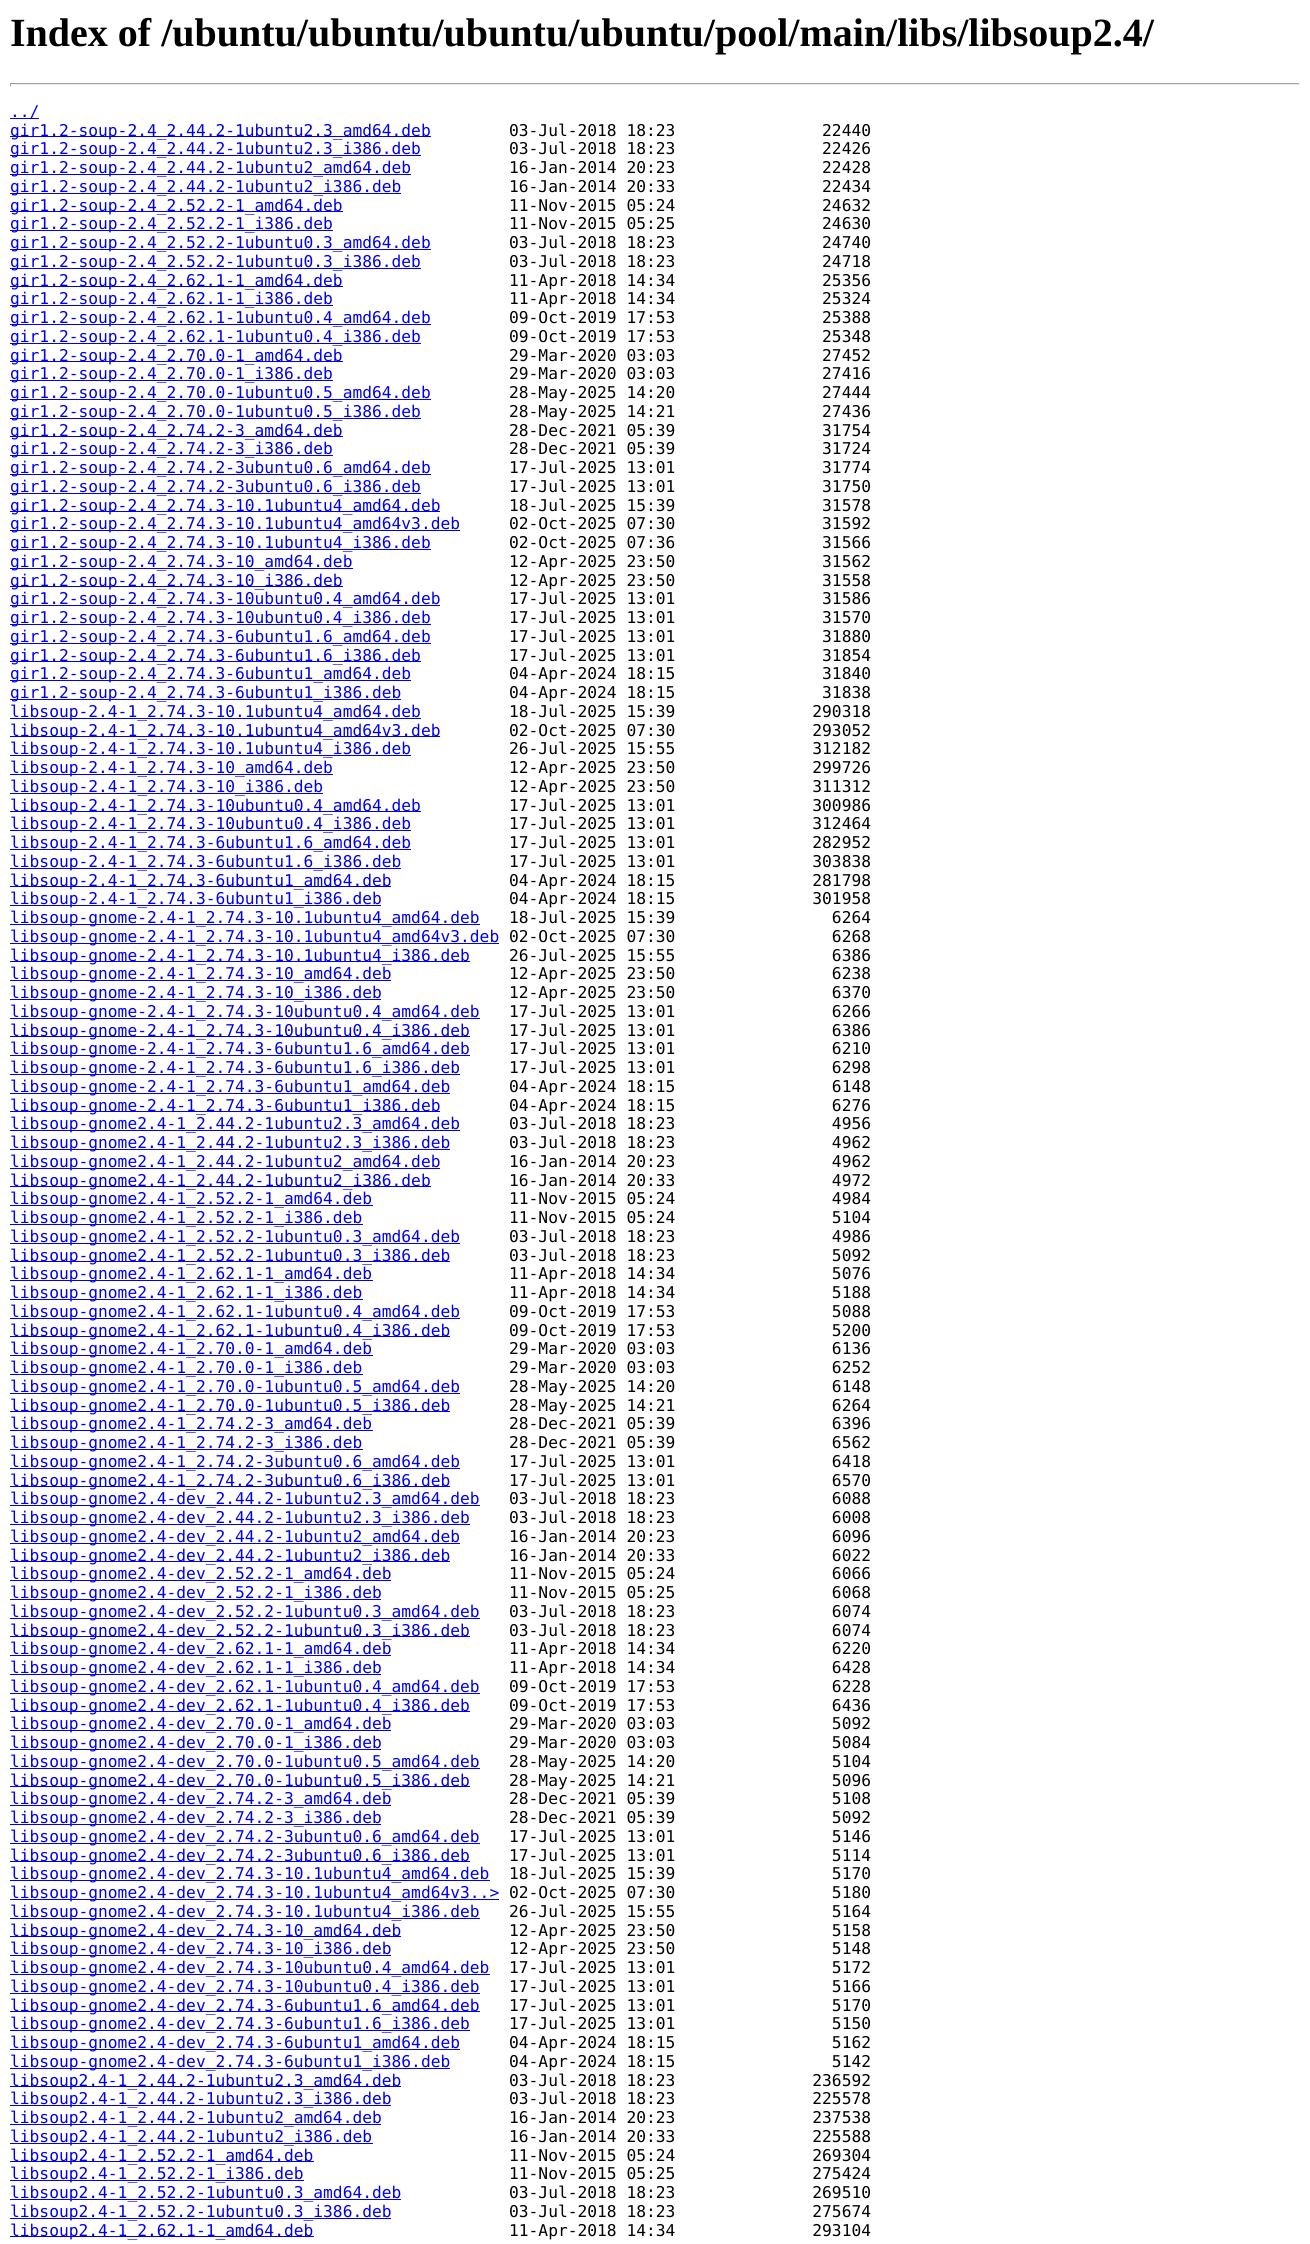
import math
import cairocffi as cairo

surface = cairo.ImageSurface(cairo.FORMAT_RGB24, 1310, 2244)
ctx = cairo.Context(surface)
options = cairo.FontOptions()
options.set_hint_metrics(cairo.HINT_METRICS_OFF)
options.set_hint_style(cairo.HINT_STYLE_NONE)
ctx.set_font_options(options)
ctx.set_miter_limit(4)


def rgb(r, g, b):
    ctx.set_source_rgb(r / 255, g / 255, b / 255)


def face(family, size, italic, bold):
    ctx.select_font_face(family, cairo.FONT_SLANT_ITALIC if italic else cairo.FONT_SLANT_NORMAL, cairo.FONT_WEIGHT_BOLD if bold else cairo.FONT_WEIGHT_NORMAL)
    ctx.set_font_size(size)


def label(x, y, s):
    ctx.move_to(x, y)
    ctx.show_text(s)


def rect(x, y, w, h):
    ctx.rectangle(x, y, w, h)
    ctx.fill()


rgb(255, 255, 255)
ctx.paint()
face('Liberation Serif', 40, 0, 1)
rgb(0, 0, 0)
label(10, 46, 'Index of /ubuntu/ubuntu/ubuntu/ubuntu/pool/main/libs/libsoup2.4/')
rgb(159, 159, 159)
rect(10, 83, 1290, 1)
rgb(238, 238, 238)
rect(1299, 83, 1, 3)
rect(10, 84, 1290, 1)
rgb(159, 159, 159)
rect(10, 83, 1, 3)
rgb(0, 0, 238)
rect(10, 118, 29, 1)
face('DejaVu Sans Mono', 16.25, 0, 0)
label(10, 117, '../')
rect(10, 136, 421, 1)
label(10, 136, 'gir1.2-soup-2.4_2.44.2-1ubuntu2.3_amd64.deb')
rgb(0, 0, 0)
label(509, 136, '03-Jul-2018 18:23               22440')
rgb(0, 0, 238)
rect(10, 155, 411, 1)
label(10, 154, 'gir1.2-soup-2.4_2.44.2-1ubuntu2.3_i386.deb')
rgb(0, 0, 0)
label(509, 154, '03-Jul-2018 18:23               22426')
rgb(0, 0, 238)
rect(10, 174, 401, 1)
label(10, 173, 'gir1.2-soup-2.4_2.44.2-1ubuntu2_amd64.deb')
rgb(0, 0, 0)
label(509, 173, '16-Jan-2014 20:23               22428')
rgb(0, 0, 238)
rect(10, 193, 391, 1)
label(10, 192, 'gir1.2-soup-2.4_2.44.2-1ubuntu2_i386.deb')
rgb(0, 0, 0)
label(509, 192, '16-Jan-2014 20:33               22434')
rgb(0, 0, 238)
rect(10, 211, 333, 1)
label(10, 211, 'gir1.2-soup-2.4_2.52.2-1_amd64.deb')
rgb(0, 0, 0)
label(509, 211, '11-Nov-2015 05:24               24632')
rgb(0, 0, 238)
rect(10, 230, 323, 1)
label(10, 229, 'gir1.2-soup-2.4_2.52.2-1_i386.deb')
rgb(0, 0, 0)
label(509, 229, '11-Nov-2015 05:25               24630')
rgb(0, 0, 238)
rect(10, 249, 421, 1)
label(10, 248, 'gir1.2-soup-2.4_2.52.2-1ubuntu0.3_amd64.deb')
rgb(0, 0, 0)
label(509, 248, '03-Jul-2018 18:23               24740')
rgb(0, 0, 238)
rect(10, 268, 411, 1)
label(10, 267, 'gir1.2-soup-2.4_2.52.2-1ubuntu0.3_i386.deb')
rgb(0, 0, 0)
label(509, 267, '03-Jul-2018 18:23               24718')
rgb(0, 0, 238)
rect(10, 286, 333, 1)
label(10, 286, 'gir1.2-soup-2.4_2.62.1-1_amd64.deb')
rgb(0, 0, 0)
label(509, 286, '11-Apr-2018 14:34               25356')
rgb(0, 0, 238)
rect(10, 305, 323, 1)
label(10, 304, 'gir1.2-soup-2.4_2.62.1-1_i386.deb')
rgb(0, 0, 0)
label(509, 304, '11-Apr-2018 14:34               25324')
rgb(0, 0, 238)
rect(10, 324, 421, 1)
label(10, 323, 'gir1.2-soup-2.4_2.62.1-1ubuntu0.4_amd64.deb')
rgb(0, 0, 0)
label(509, 323, '09-Oct-2019 17:53               25388')
rgb(0, 0, 238)
rect(10, 343, 411, 1)
label(10, 342, 'gir1.2-soup-2.4_2.62.1-1ubuntu0.4_i386.deb')
rgb(0, 0, 0)
label(509, 342, '09-Oct-2019 17:53               25348')
rgb(0, 0, 238)
rect(10, 361, 333, 1)
label(10, 361, 'gir1.2-soup-2.4_2.70.0-1_amd64.deb')
rgb(0, 0, 0)
label(509, 361, '29-Mar-2020 03:03               27452')
rgb(0, 0, 238)
rect(10, 380, 323, 1)
label(10, 379, 'gir1.2-soup-2.4_2.70.0-1_i386.deb')
rgb(0, 0, 0)
label(509, 379, '29-Mar-2020 03:03               27416')
rgb(0, 0, 238)
rect(10, 399, 421, 1)
label(10, 398, 'gir1.2-soup-2.4_2.70.0-1ubuntu0.5_amd64.deb')
rgb(0, 0, 0)
label(509, 398, '28-May-2025 14:20               27444')
rgb(0, 0, 238)
rect(10, 418, 411, 1)
label(10, 417, 'gir1.2-soup-2.4_2.70.0-1ubuntu0.5_i386.deb')
rgb(0, 0, 0)
label(509, 417, '28-May-2025 14:21               27436')
rgb(0, 0, 238)
rect(10, 436, 333, 1)
label(10, 436, 'gir1.2-soup-2.4_2.74.2-3_amd64.deb')
rgb(0, 0, 0)
label(509, 436, '28-Dec-2021 05:39               31754')
rgb(0, 0, 238)
rect(10, 455, 323, 1)
label(10, 454, 'gir1.2-soup-2.4_2.74.2-3_i386.deb')
rgb(0, 0, 0)
label(509, 454, '28-Dec-2021 05:39               31724')
rgb(0, 0, 238)
rect(10, 474, 421, 1)
label(10, 473, 'gir1.2-soup-2.4_2.74.2-3ubuntu0.6_amd64.deb')
rgb(0, 0, 0)
label(509, 473, '17-Jul-2025 13:01               31774')
rgb(0, 0, 238)
rect(10, 493, 411, 1)
label(10, 492, 'gir1.2-soup-2.4_2.74.2-3ubuntu0.6_i386.deb')
rgb(0, 0, 0)
label(509, 492, '17-Jul-2025 13:01               31750')
rgb(0, 0, 238)
rect(10, 511, 430, 1)
label(10, 511, 'gir1.2-soup-2.4_2.74.3-10.1ubuntu4_amd64.deb')
rgb(0, 0, 0)
label(509, 511, '18-Jul-2025 15:39               31578')
rgb(0, 0, 238)
rect(10, 530, 450, 1)
label(10, 529, 'gir1.2-soup-2.4_2.74.3-10.1ubuntu4_amd64v3.deb')
rgb(0, 0, 0)
label(509, 529, '02-Oct-2025 07:30               31592')
rgb(0, 0, 238)
rect(10, 549, 421, 1)
label(10, 548, 'gir1.2-soup-2.4_2.74.3-10.1ubuntu4_i386.deb')
rgb(0, 0, 0)
label(509, 548, '02-Oct-2025 07:36               31566')
rgb(0, 0, 238)
rect(10, 568, 343, 1)
label(10, 567, 'gir1.2-soup-2.4_2.74.3-10_amd64.deb')
rgb(0, 0, 0)
label(509, 567, '12-Apr-2025 23:50               31562')
rgb(0, 0, 238)
rect(10, 586, 333, 1)
label(10, 586, 'gir1.2-soup-2.4_2.74.3-10_i386.deb')
rgb(0, 0, 0)
label(509, 586, '12-Apr-2025 23:50               31558')
rgb(0, 0, 238)
rect(10, 605, 430, 1)
label(10, 604, 'gir1.2-soup-2.4_2.74.3-10ubuntu0.4_amd64.deb')
rgb(0, 0, 0)
label(509, 604, '17-Jul-2025 13:01               31586')
rgb(0, 0, 238)
rect(10, 624, 421, 1)
label(10, 623, 'gir1.2-soup-2.4_2.74.3-10ubuntu0.4_i386.deb')
rgb(0, 0, 0)
label(509, 623, '17-Jul-2025 13:01               31570')
rgb(0, 0, 238)
rect(10, 643, 421, 1)
label(10, 642, 'gir1.2-soup-2.4_2.74.3-6ubuntu1.6_amd64.deb')
rgb(0, 0, 0)
label(509, 642, '17-Jul-2025 13:01               31880')
rgb(0, 0, 238)
rect(10, 661, 411, 1)
label(10, 661, 'gir1.2-soup-2.4_2.74.3-6ubuntu1.6_i386.deb')
rgb(0, 0, 0)
label(509, 661, '17-Jul-2025 13:01               31854')
rgb(0, 0, 238)
rect(10, 680, 401, 1)
label(10, 679, 'gir1.2-soup-2.4_2.74.3-6ubuntu1_amd64.deb')
rgb(0, 0, 0)
label(509, 679, '04-Apr-2024 18:15               31840')
rgb(0, 0, 238)
rect(10, 699, 391, 1)
label(10, 698, 'gir1.2-soup-2.4_2.74.3-6ubuntu1_i386.deb')
rgb(0, 0, 0)
label(509, 698, '04-Apr-2024 18:15               31838')
rgb(0, 0, 238)
rect(10, 718, 411, 1)
label(10, 717, 'libsoup-2.4-1_2.74.3-10.1ubuntu4_amd64.deb')
rgb(0, 0, 0)
label(509, 717, '18-Jul-2025 15:39              290318')
rgb(0, 0, 238)
rect(10, 736, 430, 1)
label(10, 736, 'libsoup-2.4-1_2.74.3-10.1ubuntu4_amd64v3.deb')
rgb(0, 0, 0)
label(509, 736, '02-Oct-2025 07:30              293052')
rgb(0, 0, 238)
rect(10, 755, 401, 1)
label(10, 754, 'libsoup-2.4-1_2.74.3-10.1ubuntu4_i386.deb')
rgb(0, 0, 0)
label(509, 754, '26-Jul-2025 15:55              312182')
rgb(0, 0, 238)
rect(10, 774, 323, 1)
label(10, 773, 'libsoup-2.4-1_2.74.3-10_amd64.deb')
rgb(0, 0, 0)
label(509, 773, '12-Apr-2025 23:50              299726')
rgb(0, 0, 238)
rect(10, 793, 313, 1)
label(10, 792, 'libsoup-2.4-1_2.74.3-10_i386.deb')
rgb(0, 0, 0)
label(509, 792, '12-Apr-2025 23:50              311312')
rgb(0, 0, 238)
rect(10, 811, 411, 1)
label(10, 811, 'libsoup-2.4-1_2.74.3-10ubuntu0.4_amd64.deb')
rgb(0, 0, 0)
label(509, 811, '17-Jul-2025 13:01              300986')
rgb(0, 0, 238)
rect(10, 830, 401, 1)
label(10, 829, 'libsoup-2.4-1_2.74.3-10ubuntu0.4_i386.deb')
rgb(0, 0, 0)
label(509, 829, '17-Jul-2025 13:01              312464')
rgb(0, 0, 238)
rect(10, 849, 401, 1)
label(10, 848, 'libsoup-2.4-1_2.74.3-6ubuntu1.6_amd64.deb')
rgb(0, 0, 0)
label(509, 848, '17-Jul-2025 13:01              282952')
rgb(0, 0, 238)
rect(10, 868, 391, 1)
label(10, 867, 'libsoup-2.4-1_2.74.3-6ubuntu1.6_i386.deb')
rgb(0, 0, 0)
label(509, 867, '17-Jul-2025 13:01              303838')
rgb(0, 0, 238)
rect(10, 886, 381, 1)
label(10, 886, 'libsoup-2.4-1_2.74.3-6ubuntu1_amd64.deb')
rgb(0, 0, 0)
label(509, 886, '04-Apr-2024 18:15              281798')
rgb(0, 0, 238)
rect(10, 905, 371, 1)
label(10, 904, 'libsoup-2.4-1_2.74.3-6ubuntu1_i386.deb')
rgb(0, 0, 0)
label(509, 904, '04-Apr-2024 18:15              301958')
rgb(0, 0, 238)
rect(10, 924, 470, 1)
label(10, 923, 'libsoup-gnome-2.4-1_2.74.3-10.1ubuntu4_amd64.deb')
rgb(0, 0, 0)
label(509, 923, '18-Jul-2025 15:39                6264')
rgb(0, 0, 238)
rect(10, 943, 489, 1)
label(10, 942, 'libsoup-gnome-2.4-1_2.74.3-10.1ubuntu4_amd64v3.deb')
rgb(0, 0, 0)
label(509, 942, '02-Oct-2025 07:30                6268')
rgb(0, 0, 238)
rect(10, 961, 460, 1)
label(10, 961, 'libsoup-gnome-2.4-1_2.74.3-10.1ubuntu4_i386.deb')
rgb(0, 0, 0)
label(509, 961, '26-Jul-2025 15:55                6386')
rgb(0, 0, 238)
rect(10, 980, 381, 1)
label(10, 979, 'libsoup-gnome-2.4-1_2.74.3-10_amd64.deb')
rgb(0, 0, 0)
label(509, 979, '12-Apr-2025 23:50                6238')
rgb(0, 0, 238)
rect(10, 999, 371, 1)
label(10, 998, 'libsoup-gnome-2.4-1_2.74.3-10_i386.deb')
rgb(0, 0, 0)
label(509, 998, '12-Apr-2025 23:50                6370')
rgb(0, 0, 238)
rect(10, 1018, 470, 1)
label(10, 1017, 'libsoup-gnome-2.4-1_2.74.3-10ubuntu0.4_amd64.deb')
rgb(0, 0, 0)
label(509, 1017, '17-Jul-2025 13:01                6266')
rgb(0, 0, 238)
rect(10, 1036, 460, 1)
label(10, 1036, 'libsoup-gnome-2.4-1_2.74.3-10ubuntu0.4_i386.deb')
rgb(0, 0, 0)
label(509, 1036, '17-Jul-2025 13:01                6386')
rgb(0, 0, 238)
rect(10, 1055, 460, 1)
label(10, 1054, 'libsoup-gnome-2.4-1_2.74.3-6ubuntu1.6_amd64.deb')
rgb(0, 0, 0)
label(509, 1054, '17-Jul-2025 13:01                6210')
rgb(0, 0, 238)
rect(10, 1074, 450, 1)
label(10, 1073, 'libsoup-gnome-2.4-1_2.74.3-6ubuntu1.6_i386.deb')
rgb(0, 0, 0)
label(509, 1073, '17-Jul-2025 13:01                6298')
rgb(0, 0, 238)
rect(10, 1093, 440, 1)
label(10, 1092, 'libsoup-gnome-2.4-1_2.74.3-6ubuntu1_amd64.deb')
rgb(0, 0, 0)
label(509, 1092, '04-Apr-2024 18:15                6148')
rgb(0, 0, 238)
rect(10, 1111, 430, 1)
label(10, 1111, 'libsoup-gnome-2.4-1_2.74.3-6ubuntu1_i386.deb')
rgb(0, 0, 0)
label(509, 1111, '04-Apr-2024 18:15                6276')
rgb(0, 0, 238)
rect(10, 1130, 450, 1)
label(10, 1129, 'libsoup-gnome2.4-1_2.44.2-1ubuntu2.3_amd64.deb')
rgb(0, 0, 0)
label(509, 1129, '03-Jul-2018 18:23                4956')
rgb(0, 0, 238)
rect(10, 1149, 440, 1)
label(10, 1148, 'libsoup-gnome2.4-1_2.44.2-1ubuntu2.3_i386.deb')
rgb(0, 0, 0)
label(509, 1148, '03-Jul-2018 18:23                4962')
rgb(0, 0, 238)
rect(10, 1168, 430, 1)
label(10, 1167, 'libsoup-gnome2.4-1_2.44.2-1ubuntu2_amd64.deb')
rgb(0, 0, 0)
label(509, 1167, '16-Jan-2014 20:23                4962')
rgb(0, 0, 238)
rect(10, 1186, 421, 1)
label(10, 1186, 'libsoup-gnome2.4-1_2.44.2-1ubuntu2_i386.deb')
rgb(0, 0, 0)
label(509, 1186, '16-Jan-2014 20:33                4972')
rgb(0, 0, 238)
rect(10, 1205, 363, 1)
label(10, 1204, 'libsoup-gnome2.4-1_2.52.2-1_amd64.deb')
rgb(0, 0, 0)
label(509, 1204, '11-Nov-2015 05:24                4984')
rgb(0, 0, 238)
rect(10, 1224, 353, 1)
label(10, 1223, 'libsoup-gnome2.4-1_2.52.2-1_i386.deb')
rgb(0, 0, 0)
label(509, 1223, '11-Nov-2015 05:24                5104')
rgb(0, 0, 238)
rect(10, 1243, 450, 1)
label(10, 1242, 'libsoup-gnome2.4-1_2.52.2-1ubuntu0.3_amd64.deb')
rgb(0, 0, 0)
label(509, 1242, '03-Jul-2018 18:23                4986')
rgb(0, 0, 238)
rect(10, 1261, 440, 1)
label(10, 1261, 'libsoup-gnome2.4-1_2.52.2-1ubuntu0.3_i386.deb')
rgb(0, 0, 0)
label(509, 1261, '03-Jul-2018 18:23                5092')
rgb(0, 0, 238)
rect(10, 1280, 363, 1)
label(10, 1279, 'libsoup-gnome2.4-1_2.62.1-1_amd64.deb')
rgb(0, 0, 0)
label(509, 1279, '11-Apr-2018 14:34                5076')
rgb(0, 0, 238)
rect(10, 1299, 353, 1)
label(10, 1298, 'libsoup-gnome2.4-1_2.62.1-1_i386.deb')
rgb(0, 0, 0)
label(509, 1298, '11-Apr-2018 14:34                5188')
rgb(0, 0, 238)
rect(10, 1318, 450, 1)
label(10, 1317, 'libsoup-gnome2.4-1_2.62.1-1ubuntu0.4_amd64.deb')
rgb(0, 0, 0)
label(509, 1317, '09-Oct-2019 17:53                5088')
rgb(0, 0, 238)
rect(10, 1336, 440, 1)
label(10, 1336, 'libsoup-gnome2.4-1_2.62.1-1ubuntu0.4_i386.deb')
rgb(0, 0, 0)
label(509, 1336, '09-Oct-2019 17:53                5200')
rgb(0, 0, 238)
rect(10, 1355, 363, 1)
label(10, 1354, 'libsoup-gnome2.4-1_2.70.0-1_amd64.deb')
rgb(0, 0, 0)
label(509, 1354, '29-Mar-2020 03:03                6136')
rgb(0, 0, 238)
rect(10, 1374, 353, 1)
label(10, 1373, 'libsoup-gnome2.4-1_2.70.0-1_i386.deb')
rgb(0, 0, 0)
label(509, 1373, '29-Mar-2020 03:03                6252')
rgb(0, 0, 238)
rect(10, 1393, 450, 1)
label(10, 1392, 'libsoup-gnome2.4-1_2.70.0-1ubuntu0.5_amd64.deb')
rgb(0, 0, 0)
label(509, 1392, '28-May-2025 14:20                6148')
rgb(0, 0, 238)
rect(10, 1411, 440, 1)
label(10, 1411, 'libsoup-gnome2.4-1_2.70.0-1ubuntu0.5_i386.deb')
rgb(0, 0, 0)
label(509, 1411, '28-May-2025 14:21                6264')
rgb(0, 0, 238)
rect(10, 1430, 363, 1)
label(10, 1429, 'libsoup-gnome2.4-1_2.74.2-3_amd64.deb')
rgb(0, 0, 0)
label(509, 1429, '28-Dec-2021 05:39                6396')
rgb(0, 0, 238)
rect(10, 1449, 353, 1)
label(10, 1448, 'libsoup-gnome2.4-1_2.74.2-3_i386.deb')
rgb(0, 0, 0)
label(509, 1448, '28-Dec-2021 05:39                6562')
rgb(0, 0, 238)
rect(10, 1468, 450, 1)
label(10, 1467, 'libsoup-gnome2.4-1_2.74.2-3ubuntu0.6_amd64.deb')
rgb(0, 0, 0)
label(509, 1467, '17-Jul-2025 13:01                6418')
rgb(0, 0, 238)
rect(10, 1486, 440, 1)
label(10, 1486, 'libsoup-gnome2.4-1_2.74.2-3ubuntu0.6_i386.deb')
rgb(0, 0, 0)
label(509, 1486, '17-Jul-2025 13:01                6570')
rgb(0, 0, 238)
rect(10, 1505, 470, 1)
label(10, 1504, 'libsoup-gnome2.4-dev_2.44.2-1ubuntu2.3_amd64.deb')
rgb(0, 0, 0)
label(509, 1504, '03-Jul-2018 18:23                6088')
rgb(0, 0, 238)
rect(10, 1524, 460, 1)
label(10, 1523, 'libsoup-gnome2.4-dev_2.44.2-1ubuntu2.3_i386.deb')
rgb(0, 0, 0)
label(509, 1523, '03-Jul-2018 18:23                6008')
rgb(0, 0, 238)
rect(10, 1543, 450, 1)
label(10, 1542, 'libsoup-gnome2.4-dev_2.44.2-1ubuntu2_amd64.deb')
rgb(0, 0, 0)
label(509, 1542, '16-Jan-2014 20:23                6096')
rgb(0, 0, 238)
rect(10, 1561, 440, 1)
label(10, 1561, 'libsoup-gnome2.4-dev_2.44.2-1ubuntu2_i386.deb')
rgb(0, 0, 0)
label(509, 1561, '16-Jan-2014 20:33                6022')
rgb(0, 0, 238)
rect(10, 1580, 381, 1)
label(10, 1579, 'libsoup-gnome2.4-dev_2.52.2-1_amd64.deb')
rgb(0, 0, 0)
label(509, 1579, '11-Nov-2015 05:24                6066')
rgb(0, 0, 238)
rect(10, 1599, 371, 1)
label(10, 1598, 'libsoup-gnome2.4-dev_2.52.2-1_i386.deb')
rgb(0, 0, 0)
label(509, 1598, '11-Nov-2015 05:25                6068')
rgb(0, 0, 238)
rect(10, 1618, 470, 1)
label(10, 1617, 'libsoup-gnome2.4-dev_2.52.2-1ubuntu0.3_amd64.deb')
rgb(0, 0, 0)
label(509, 1617, '03-Jul-2018 18:23                6074')
rgb(0, 0, 238)
rect(10, 1636, 460, 1)
label(10, 1636, 'libsoup-gnome2.4-dev_2.52.2-1ubuntu0.3_i386.deb')
rgb(0, 0, 0)
label(509, 1636, '03-Jul-2018 18:23                6074')
rgb(0, 0, 238)
rect(10, 1655, 381, 1)
label(10, 1654, 'libsoup-gnome2.4-dev_2.62.1-1_amd64.deb')
rgb(0, 0, 0)
label(509, 1654, '11-Apr-2018 14:34                6220')
rgb(0, 0, 238)
rect(10, 1674, 371, 1)
label(10, 1673, 'libsoup-gnome2.4-dev_2.62.1-1_i386.deb')
rgb(0, 0, 0)
label(509, 1673, '11-Apr-2018 14:34                6428')
rgb(0, 0, 238)
rect(10, 1693, 470, 1)
label(10, 1692, 'libsoup-gnome2.4-dev_2.62.1-1ubuntu0.4_amd64.deb')
rgb(0, 0, 0)
label(509, 1692, '09-Oct-2019 17:53                6228')
rgb(0, 0, 238)
rect(10, 1711, 460, 1)
label(10, 1711, 'libsoup-gnome2.4-dev_2.62.1-1ubuntu0.4_i386.deb')
rgb(0, 0, 0)
label(509, 1711, '09-Oct-2019 17:53                6436')
rgb(0, 0, 238)
rect(10, 1730, 381, 1)
label(10, 1729, 'libsoup-gnome2.4-dev_2.70.0-1_amd64.deb')
rgb(0, 0, 0)
label(509, 1729, '29-Mar-2020 03:03                5092')
rgb(0, 0, 238)
rect(10, 1749, 371, 1)
label(10, 1748, 'libsoup-gnome2.4-dev_2.70.0-1_i386.deb')
rgb(0, 0, 0)
label(509, 1748, '29-Mar-2020 03:03                5084')
rgb(0, 0, 238)
rect(10, 1768, 470, 1)
label(10, 1767, 'libsoup-gnome2.4-dev_2.70.0-1ubuntu0.5_amd64.deb')
rgb(0, 0, 0)
label(509, 1767, '28-May-2025 14:20                5104')
rgb(0, 0, 238)
rect(10, 1786, 460, 1)
label(10, 1786, 'libsoup-gnome2.4-dev_2.70.0-1ubuntu0.5_i386.deb')
rgb(0, 0, 0)
label(509, 1786, '28-May-2025 14:21                5096')
rgb(0, 0, 238)
rect(10, 1805, 381, 1)
label(10, 1804, 'libsoup-gnome2.4-dev_2.74.2-3_amd64.deb')
rgb(0, 0, 0)
label(509, 1804, '28-Dec-2021 05:39                5108')
rgb(0, 0, 238)
rect(10, 1824, 371, 1)
label(10, 1823, 'libsoup-gnome2.4-dev_2.74.2-3_i386.deb')
rgb(0, 0, 0)
label(509, 1823, '28-Dec-2021 05:39                5092')
rgb(0, 0, 238)
rect(10, 1843, 470, 1)
label(10, 1842, 'libsoup-gnome2.4-dev_2.74.2-3ubuntu0.6_amd64.deb')
rgb(0, 0, 0)
label(509, 1842, '17-Jul-2025 13:01                5146')
rgb(0, 0, 238)
rect(10, 1861, 460, 1)
label(10, 1861, 'libsoup-gnome2.4-dev_2.74.2-3ubuntu0.6_i386.deb')
rgb(0, 0, 0)
label(509, 1861, '17-Jul-2025 13:01                5114')
rgb(0, 0, 238)
rect(10, 1880, 480, 1)
label(10, 1879, 'libsoup-gnome2.4-dev_2.74.3-10.1ubuntu4_amd64.deb')
rgb(0, 0, 0)
label(509, 1879, '18-Jul-2025 15:39                5170')
rgb(0, 0, 238)
rect(10, 1899, 489, 1)
label(10, 1898, 'libsoup-gnome2.4-dev_2.74.3-10.1ubuntu4_amd64v3..>')
rgb(0, 0, 0)
label(509, 1898, '02-Oct-2025 07:30                5180')
rgb(0, 0, 238)
rect(10, 1918, 470, 1)
label(10, 1917, 'libsoup-gnome2.4-dev_2.74.3-10.1ubuntu4_i386.deb')
rgb(0, 0, 0)
label(509, 1917, '26-Jul-2025 15:55                5164')
rgb(0, 0, 238)
rect(10, 1936, 391, 1)
label(10, 1936, 'libsoup-gnome2.4-dev_2.74.3-10_amd64.deb')
rgb(0, 0, 0)
label(509, 1936, '12-Apr-2025 23:50                5158')
rgb(0, 0, 238)
rect(10, 1955, 381, 1)
label(10, 1954, 'libsoup-gnome2.4-dev_2.74.3-10_i386.deb')
rgb(0, 0, 0)
label(509, 1954, '12-Apr-2025 23:50                5148')
rgb(0, 0, 238)
rect(10, 1974, 480, 1)
label(10, 1973, 'libsoup-gnome2.4-dev_2.74.3-10ubuntu0.4_amd64.deb')
rgb(0, 0, 0)
label(509, 1973, '17-Jul-2025 13:01                5172')
rgb(0, 0, 238)
rect(10, 1993, 470, 1)
label(10, 1992, 'libsoup-gnome2.4-dev_2.74.3-10ubuntu0.4_i386.deb')
rgb(0, 0, 0)
label(509, 1992, '17-Jul-2025 13:01                5166')
rgb(0, 0, 238)
rect(10, 2011, 470, 1)
label(10, 2011, 'libsoup-gnome2.4-dev_2.74.3-6ubuntu1.6_amd64.deb')
rgb(0, 0, 0)
label(509, 2011, '17-Jul-2025 13:01                5170')
rgb(0, 0, 238)
rect(10, 2030, 460, 1)
label(10, 2029, 'libsoup-gnome2.4-dev_2.74.3-6ubuntu1.6_i386.deb')
rgb(0, 0, 0)
label(509, 2029, '17-Jul-2025 13:01                5150')
rgb(0, 0, 238)
rect(10, 2049, 450, 1)
label(10, 2048, 'libsoup-gnome2.4-dev_2.74.3-6ubuntu1_amd64.deb')
rgb(0, 0, 0)
label(509, 2048, '04-Apr-2024 18:15                5162')
rgb(0, 0, 238)
rect(10, 2068, 440, 1)
label(10, 2067, 'libsoup-gnome2.4-dev_2.74.3-6ubuntu1_i386.deb')
rgb(0, 0, 0)
label(509, 2067, '04-Apr-2024 18:15                5142')
rgb(0, 0, 238)
rect(10, 2086, 391, 1)
label(10, 2086, 'libsoup2.4-1_2.44.2-1ubuntu2.3_amd64.deb')
rgb(0, 0, 0)
label(509, 2086, '03-Jul-2018 18:23              236592')
rgb(0, 0, 238)
rect(10, 2105, 381, 1)
label(10, 2104, 'libsoup2.4-1_2.44.2-1ubuntu2.3_i386.deb')
rgb(0, 0, 0)
label(509, 2104, '03-Jul-2018 18:23              225578')
rgb(0, 0, 238)
rect(10, 2124, 371, 1)
label(10, 2123, 'libsoup2.4-1_2.44.2-1ubuntu2_amd64.deb')
rgb(0, 0, 0)
label(509, 2123, '16-Jan-2014 20:23              237538')
rgb(0, 0, 238)
rect(10, 2143, 363, 1)
label(10, 2142, 'libsoup2.4-1_2.44.2-1ubuntu2_i386.deb')
rgb(0, 0, 0)
label(509, 2142, '16-Jan-2014 20:33              225588')
rgb(0, 0, 238)
rect(10, 2161, 304, 1)
label(10, 2161, 'libsoup2.4-1_2.52.2-1_amd64.deb')
rgb(0, 0, 0)
label(509, 2161, '11-Nov-2015 05:24              269304')
rgb(0, 0, 238)
rect(10, 2180, 294, 1)
label(10, 2179, 'libsoup2.4-1_2.52.2-1_i386.deb')
rgb(0, 0, 0)
label(509, 2179, '11-Nov-2015 05:25              275424')
rgb(0, 0, 238)
rect(10, 2199, 391, 1)
label(10, 2198, 'libsoup2.4-1_2.52.2-1ubuntu0.3_amd64.deb')
rgb(0, 0, 0)
label(509, 2198, '03-Jul-2018 18:23              269510')
rgb(0, 0, 238)
rect(10, 2218, 381, 1)
label(10, 2217, 'libsoup2.4-1_2.52.2-1ubuntu0.3_i386.deb')
rgb(0, 0, 0)
label(509, 2217, '03-Jul-2018 18:23              275674')
rgb(0, 0, 238)
rect(10, 2236, 304, 1)
label(10, 2236, 'libsoup2.4-1_2.62.1-1_amd64.deb')
rgb(0, 0, 0)
label(509, 2236, '11-Apr-2018 14:34              293104')
surface.write_to_png('render.png')
